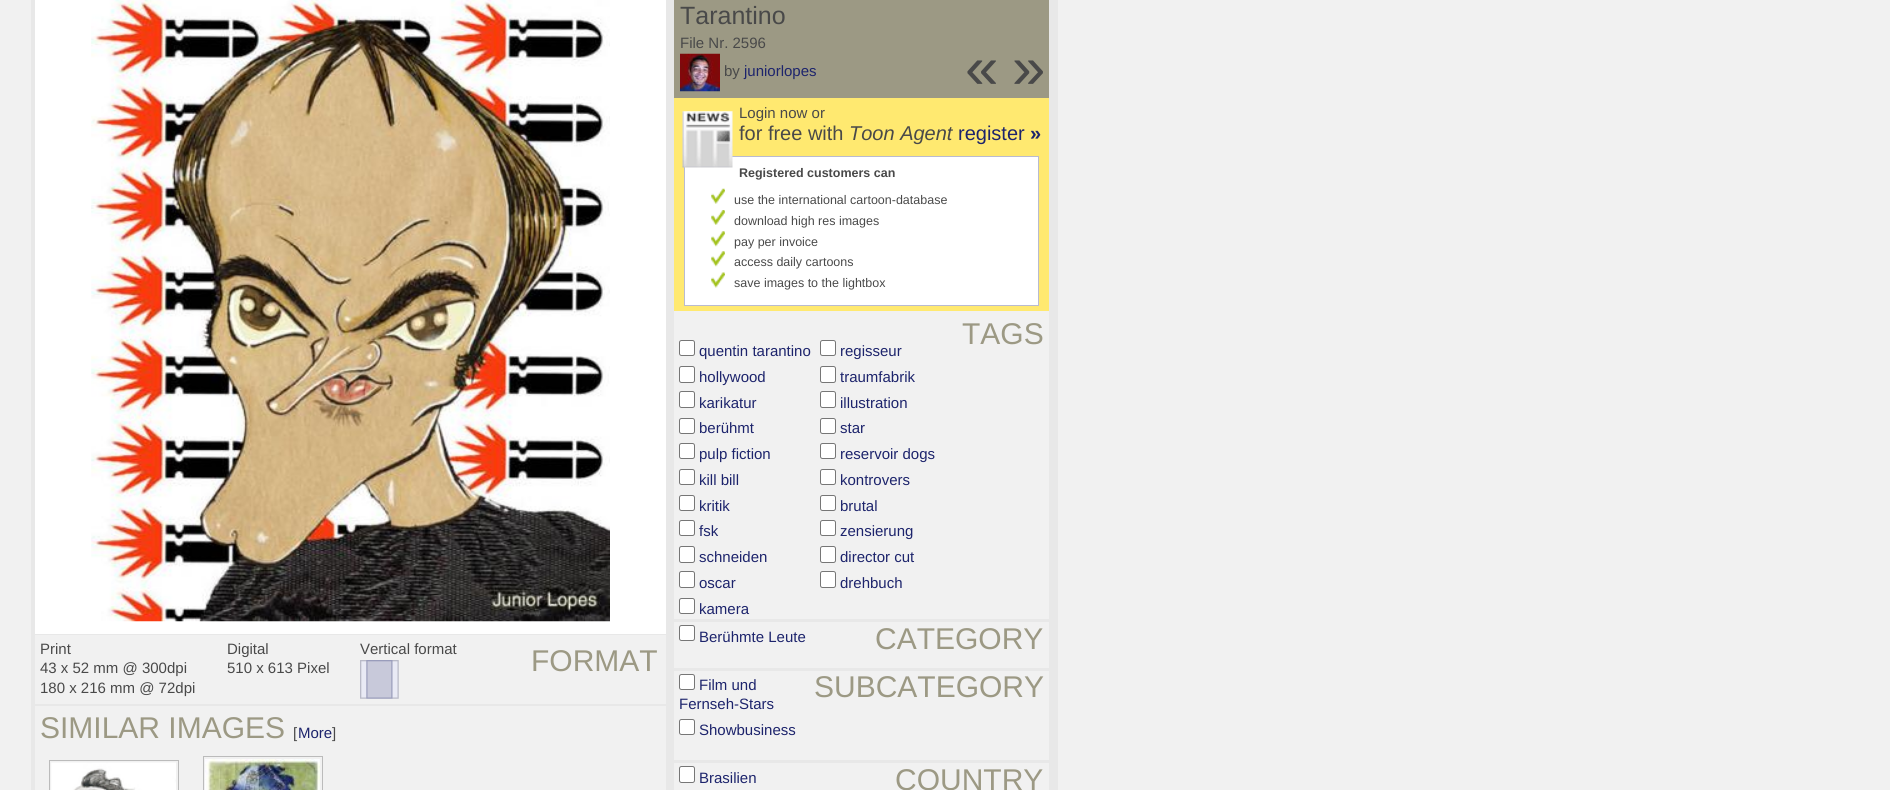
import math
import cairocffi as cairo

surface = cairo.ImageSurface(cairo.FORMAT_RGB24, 1890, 790)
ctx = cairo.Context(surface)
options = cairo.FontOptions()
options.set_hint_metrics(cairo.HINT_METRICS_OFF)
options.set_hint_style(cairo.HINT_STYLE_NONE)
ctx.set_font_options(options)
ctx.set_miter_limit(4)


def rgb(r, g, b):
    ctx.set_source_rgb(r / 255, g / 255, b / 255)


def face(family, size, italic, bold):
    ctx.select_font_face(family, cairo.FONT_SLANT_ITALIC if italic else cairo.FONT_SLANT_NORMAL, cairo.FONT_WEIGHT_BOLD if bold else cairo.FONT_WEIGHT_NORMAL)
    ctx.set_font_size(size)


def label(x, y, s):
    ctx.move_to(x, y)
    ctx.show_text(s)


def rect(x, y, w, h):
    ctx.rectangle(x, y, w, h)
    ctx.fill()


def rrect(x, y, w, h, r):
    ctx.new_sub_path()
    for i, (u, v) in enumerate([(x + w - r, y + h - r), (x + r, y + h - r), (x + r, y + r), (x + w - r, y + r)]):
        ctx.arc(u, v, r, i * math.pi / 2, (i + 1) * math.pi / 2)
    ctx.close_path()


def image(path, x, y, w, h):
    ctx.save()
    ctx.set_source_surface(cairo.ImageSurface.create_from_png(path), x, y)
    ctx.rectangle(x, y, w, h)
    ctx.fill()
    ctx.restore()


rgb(241, 241, 241)
ctx.paint()
rgb(232, 232, 232)
rect(31, 0, 1027, 790)
rgb(255, 255, 255)
rect(35, 0, 631, 634)
image('image0.png', 91, 0, 519, 622)
rgb(241, 241, 241)
rect(35, 635, 631, 69)
face('Liberation Sans', 15, 0, 0)
rgb(73, 73, 73)
label(40, 654, 'Print')
label(40, 673, '43 x 52 mm @ 300dpi')
label(40, 693, '180 x 216 mm @ 72dpi')
label(227, 654, 'Digital')
label(227, 673, '510 x 613 Pixel')
label(360, 654, 'Vertical format')
image('image1.png', 360, 660, 39, 39)
face('Liberation Sans', 30, 0, 0)
rgb(156, 153, 132)
label(531, 671, 'FORMAT')
rgb(241, 241, 241)
rect(35, 706, 631, 84)
rgb(156, 153, 132)
label(40, 738, 'SIMILAR IMAGES')
face('Liberation Sans', 15, 0, 0)
rgb(73, 73, 73)
label(293, 738, '[')
rgb(29, 36, 108)
label(298, 738, 'More')
rgb(73, 73, 73)
label(332, 738, ']')
ctx.rectangle(49.5, 760.5, 129, 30)
rgb(187, 187, 187)
ctx.set_line_width(1)
ctx.stroke()
image('image2.png', 51, 762, 125, 28)
ctx.rectangle(203.5, 756.5, 119, 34)
ctx.stroke()
image('image3.png', 205, 759, 115, 31)
rgb(156, 153, 132)
rect(674, 0, 375, 98)
face('Liberation Sans', 25, 0, 0)
rgb(73, 73, 73)
label(680, 24, 'Tarantino')
face('Liberation Sans', 15, 0, 0)
label(680, 48, 'File Nr. 2596')
image('image4.png', 680, 53, 40, 39)
label(724, 76, 'by')
rgb(29, 36, 108)
label(744, 76, 'juniorlopes')
face('Liberation Sans', 60, 0, 0)
rgb(73, 73, 73)
label(965, 88, '«')
label(1012, 88, '»')
rgb(255, 233, 112)
rect(674, 98, 375, 213)
rgb(255, 255, 255)
ctx.rectangle(684.5, 156.5, 354, 149)
ctx.fill_preserve()
rgb(185, 187, 208)
ctx.stroke()
image('image5.png', 682, 111, 51, 57)
face('Liberation Sans', 15, 0, 0)
rgb(73, 73, 73)
label(739, 118, 'Login now or')
face('Liberation Sans', 20, 0, 0)
label(739, 140, 'for free with')
face('Liberation Sans', 20, 1, 0)
label(849, 140, 'Toon Agent')
face('Liberation Sans', 20, 0, 0)
rgb(29, 36, 108)
label(958, 140, 'register')
face('Liberation Sans', 20, 0, 1)
label(1030, 140, '»')
face('Liberation Sans', 12.5, 0, 1)
rgb(73, 73, 73)
label(739, 177, 'Registered customers can')
image('image6.png', 711, 188, 14, 16)
face('Liberation Sans', 12.5, 0, 0)
label(734, 204, 'use the international cartoon-database')
image('image7.png', 711, 210, 14, 15)
label(734, 225, 'download high res images')
image('image8.png', 711, 231, 14, 16)
label(734, 246, 'pay per invoice')
image('image8.png', 711, 251, 14, 16)
label(734, 266, 'access daily cartoons')
image('image9.png', 711, 272, 14, 16)
label(734, 287, 'save images to the lightbox')
rgb(241, 241, 241)
rect(674, 311, 375, 479)
face('Liberation Sans', 30, 0, 0)
rgb(156, 153, 132)
label(962, 344, 'TAGS')
rgb(255, 255, 255)
rrect(679.5, 340.5, 15, 15, 2)
ctx.fill_preserve()
rgb(118, 118, 118)
ctx.stroke()
face('Liberation Sans', 15, 0, 0)
rgb(29, 36, 108)
label(699, 356, 'quentin tarantino')
rgb(255, 255, 255)
rrect(820.5, 340.5, 15, 15, 2)
ctx.fill_preserve()
rgb(118, 118, 118)
ctx.stroke()
rgb(29, 36, 108)
label(840, 356, 'regisseur')
rgb(255, 255, 255)
rrect(679.5, 366.5, 15, 16, 2)
ctx.fill_preserve()
rgb(118, 118, 118)
ctx.stroke()
rgb(29, 36, 108)
label(699, 382, 'hollywood')
rgb(255, 255, 255)
rrect(820.5, 366.5, 15, 16, 2)
ctx.fill_preserve()
rgb(118, 118, 118)
ctx.stroke()
rgb(29, 36, 108)
label(840, 382, 'traumfabrik')
rgb(255, 255, 255)
rrect(679.5, 391.5, 15, 16, 2)
ctx.fill_preserve()
rgb(118, 118, 118)
ctx.stroke()
rgb(29, 36, 108)
label(699, 408, 'karikatur')
rgb(255, 255, 255)
rrect(820.5, 391.5, 15, 16, 2)
ctx.fill_preserve()
rgb(118, 118, 118)
ctx.stroke()
rgb(29, 36, 108)
label(840, 408, 'illustration')
rgb(255, 255, 255)
rrect(679.5, 418.5, 15, 15, 2)
ctx.fill_preserve()
rgb(118, 118, 118)
ctx.stroke()
rgb(29, 36, 108)
label(699, 433, 'berühmt')
rgb(255, 255, 255)
rrect(820.5, 418.5, 15, 15, 2)
ctx.fill_preserve()
rgb(118, 118, 118)
ctx.stroke()
rgb(29, 36, 108)
label(840, 433, 'star')
rgb(255, 255, 255)
rrect(679.5, 443.5, 15, 15, 2)
ctx.fill_preserve()
rgb(118, 118, 118)
ctx.stroke()
rgb(29, 36, 108)
label(699, 459, 'pulp fiction')
rgb(255, 255, 255)
rrect(820.5, 443.5, 15, 15, 2)
ctx.fill_preserve()
rgb(118, 118, 118)
ctx.stroke()
rgb(29, 36, 108)
label(840, 459, 'reservoir dogs')
rgb(255, 255, 255)
rrect(679.5, 469.5, 15, 15, 2)
ctx.fill_preserve()
rgb(118, 118, 118)
ctx.stroke()
rgb(29, 36, 108)
label(699, 485, 'kill bill')
rgb(255, 255, 255)
rrect(820.5, 469.5, 15, 15, 2)
ctx.fill_preserve()
rgb(118, 118, 118)
ctx.stroke()
rgb(29, 36, 108)
label(840, 485, 'kontrovers')
rgb(255, 255, 255)
rrect(679.5, 495.5, 15, 15, 2)
ctx.fill_preserve()
rgb(118, 118, 118)
ctx.stroke()
rgb(29, 36, 108)
label(699, 511, 'kritik')
rgb(255, 255, 255)
rrect(820.5, 495.5, 15, 15, 2)
ctx.fill_preserve()
rgb(118, 118, 118)
ctx.stroke()
rgb(29, 36, 108)
label(840, 511, 'brutal')
rgb(255, 255, 255)
rrect(679.5, 520.5, 15, 15, 2)
ctx.fill_preserve()
rgb(118, 118, 118)
ctx.stroke()
rgb(29, 36, 108)
label(699, 536, 'fsk')
rgb(255, 255, 255)
rrect(820.5, 520.5, 15, 15, 2)
ctx.fill_preserve()
rgb(118, 118, 118)
ctx.stroke()
rgb(29, 36, 108)
label(840, 536, 'zensierung')
rgb(255, 255, 255)
rrect(679.5, 546.5, 15, 16, 2)
ctx.fill_preserve()
rgb(118, 118, 118)
ctx.stroke()
rgb(29, 36, 108)
label(699, 562, 'schneiden')
rgb(255, 255, 255)
rrect(820.5, 546.5, 15, 16, 2)
ctx.fill_preserve()
rgb(118, 118, 118)
ctx.stroke()
rgb(29, 36, 108)
label(840, 562, 'director cut')
rgb(255, 255, 255)
rrect(679.5, 571.5, 15, 16, 2)
ctx.fill_preserve()
rgb(118, 118, 118)
ctx.stroke()
rgb(29, 36, 108)
label(699, 588, 'oscar')
rgb(255, 255, 255)
rrect(820.5, 571.5, 15, 16, 2)
ctx.fill_preserve()
rgb(118, 118, 118)
ctx.stroke()
rgb(29, 36, 108)
label(840, 588, 'drehbuch')
rgb(255, 255, 255)
rrect(679.5, 598.5, 15, 15, 2)
ctx.fill_preserve()
rgb(118, 118, 118)
ctx.stroke()
rgb(29, 36, 108)
label(699, 614, 'kamera')
rgb(232, 232, 232)
rect(674, 619, 375, 3)
rgb(255, 255, 255)
rrect(679.5, 625.5, 15, 15, 2)
ctx.fill_preserve()
rgb(118, 118, 118)
ctx.stroke()
rgb(29, 36, 108)
label(699, 642, 'Berühmte Leute')
face('Liberation Sans', 30, 0, 0)
rgb(156, 153, 132)
label(875, 649, 'CATEGORY')
rgb(232, 232, 232)
rect(674, 668, 375, 3)
rgb(255, 255, 255)
rrect(679.5, 674.5, 15, 15, 2)
ctx.fill_preserve()
rgb(118, 118, 118)
ctx.stroke()
face('Liberation Sans', 15, 0, 0)
rgb(29, 36, 108)
label(699, 690, 'Film und')
face('Liberation Sans', 30, 0, 0)
rgb(156, 153, 132)
label(814, 697, 'SUBCATEGORY')
face('Liberation Sans', 15, 0, 0)
rgb(29, 36, 108)
label(679, 709, 'Fernseh-Stars')
rgb(255, 255, 255)
rrect(679.5, 719.5, 15, 15, 2)
ctx.fill_preserve()
rgb(118, 118, 118)
ctx.stroke()
rgb(29, 36, 108)
label(699, 735, 'Showbusiness')
rgb(232, 232, 232)
rect(674, 760, 375, 3)
rgb(255, 255, 255)
rrect(679.5, 766.5, 15, 16, 2)
ctx.fill_preserve()
rgb(118, 118, 118)
ctx.stroke()
rgb(29, 36, 108)
label(699, 783, 'Brasilien')
face('Liberation Sans', 30, 0, 0)
rgb(156, 153, 132)
label(895, 790, 'COUNTRY')
surface.write_to_png('render.png')
